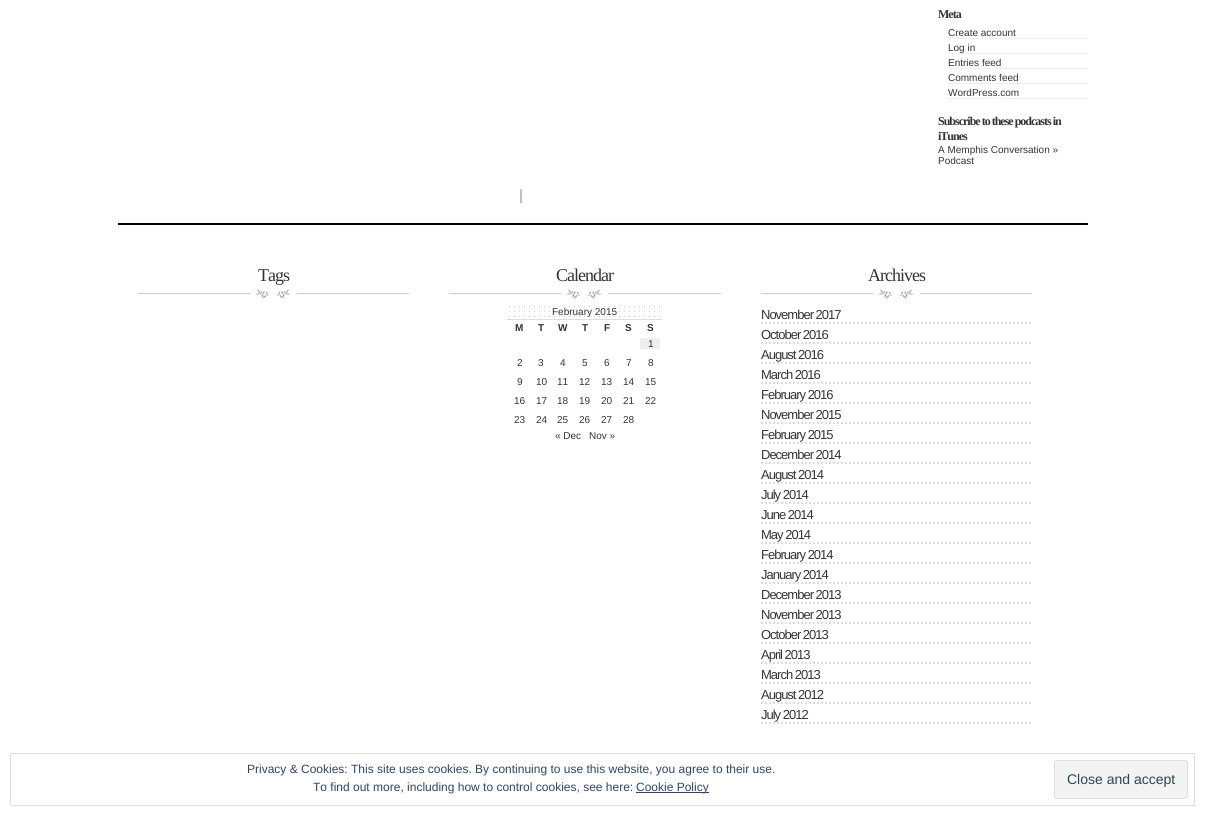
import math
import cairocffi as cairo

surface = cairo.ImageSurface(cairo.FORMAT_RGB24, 1205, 816)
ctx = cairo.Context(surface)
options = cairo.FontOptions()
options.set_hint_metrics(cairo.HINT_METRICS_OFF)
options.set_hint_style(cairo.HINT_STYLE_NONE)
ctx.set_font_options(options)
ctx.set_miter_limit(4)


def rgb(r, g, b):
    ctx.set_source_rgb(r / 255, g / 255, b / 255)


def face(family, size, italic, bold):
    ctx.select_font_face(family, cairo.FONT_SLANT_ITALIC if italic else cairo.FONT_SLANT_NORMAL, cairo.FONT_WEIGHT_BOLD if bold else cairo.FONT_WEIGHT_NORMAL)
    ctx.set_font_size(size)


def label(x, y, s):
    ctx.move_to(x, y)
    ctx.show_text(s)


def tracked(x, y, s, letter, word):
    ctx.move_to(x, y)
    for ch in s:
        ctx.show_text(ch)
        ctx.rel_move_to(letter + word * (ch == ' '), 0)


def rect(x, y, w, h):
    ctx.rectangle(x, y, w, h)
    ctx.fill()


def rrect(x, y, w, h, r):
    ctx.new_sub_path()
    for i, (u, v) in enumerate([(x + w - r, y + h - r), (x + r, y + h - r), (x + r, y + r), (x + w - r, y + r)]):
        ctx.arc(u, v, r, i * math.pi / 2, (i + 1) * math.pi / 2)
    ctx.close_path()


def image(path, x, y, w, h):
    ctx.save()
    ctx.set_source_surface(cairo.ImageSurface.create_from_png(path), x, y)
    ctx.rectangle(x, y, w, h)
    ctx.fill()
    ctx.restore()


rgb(255, 255, 255)
ctx.paint()
face('Liberation Serif', 12, 0, 1)
rgb(51, 51, 51)
tracked(938, 18, 'Meta', -1, 0)
rgb(238, 238, 238)
rect(948, 38, 140, 1)
face('Liberation Sans', 10, 0, 0)
rgb(51, 51, 51)
label(948, 36, 'Create account')
rgb(238, 238, 238)
rect(948, 53, 140, 1)
rgb(51, 51, 51)
label(948, 51, 'Log in')
rgb(238, 238, 238)
rect(948, 68, 140, 1)
rgb(51, 51, 51)
label(948, 66, 'Entries feed')
rgb(238, 238, 238)
rect(948, 83, 140, 1)
rgb(51, 51, 51)
label(948, 81, 'Comments feed')
rgb(238, 238, 238)
rect(948, 98, 140, 1)
rgb(51, 51, 51)
label(948, 96, 'WordPress.com')
face('Liberation Serif', 12, 0, 1)
tracked(938, 125, 'Subscribe to these podcasts in', -1, 0)
tracked(938, 140, 'iTunes', -1, 0)
face('Liberation Sans', 10, 0, 0)
label(938, 153, 'A Memphis Conversation »')
label(938, 164, 'Podcast')
face('Liberation Sans', 15, 0, 0)
rgb(153, 153, 153)
label(519, 200, '|')
rgb(0, 0, 0)
rect(118, 223, 970, 2)
rgb(204, 204, 204)
rect(138, 293, 271, 1)
image('image0.png', 250, 289, 47, 10)
face('Liberation Serif', 18, 0, 0)
rgb(51, 51, 51)
tracked(258, 281, 'Tags', -1, 0)
rgb(204, 204, 204)
rect(449, 293, 272, 1)
image('image0.png', 561, 289, 47, 10)
rgb(51, 51, 51)
tracked(556, 281, 'Calendar', -1, 0)
image('image1.png', 509, 306, 151, 11)
rgb(221, 221, 221)
rect(507, 319, 155, 1)
face('Liberation Sans', 10, 0, 0)
rgb(51, 51, 51)
label(552, 315, 'February 2015')
face('Liberation Sans', 10, 0, 1)
label(515, 331, 'M')
label(538, 331, 'T')
label(558, 331, 'W')
label(582, 331, 'T')
label(604, 331, 'F')
label(625, 331, 'S')
label(647, 331, 'S')
rgb(238, 238, 238)
rect(640, 338, 20, 11)
face('Liberation Sans', 10, 0, 0)
rgb(51, 51, 51)
label(648, 347, '1')
label(517, 366, '2')
label(538, 366, '3')
label(560, 366, '4')
label(582, 366, '5')
label(604, 366, '6')
label(626, 366, '7')
label(648, 366, '8')
label(517, 385, '9')
label(536, 385, '10')
label(557, 385, '11')
label(579, 385, '12')
label(601, 385, '13')
label(623, 385, '14')
label(645, 385, '15')
label(514, 404, '16')
label(536, 404, '17')
label(557, 404, '18')
label(579, 404, '19')
label(601, 404, '20')
label(623, 404, '21')
label(645, 404, '22')
label(514, 423, '23')
label(536, 423, '24')
label(557, 423, '25')
label(579, 423, '26')
label(601, 423, '27')
label(623, 423, '28')
label(555, 439, '« Dec')
label(589, 439, 'Nov »')
rgb(204, 204, 204)
rect(761, 293, 271, 1)
image('image0.png', 873, 289, 47, 10)
face('Liberation Serif', 18, 0, 0)
rgb(51, 51, 51)
tracked(868, 281, 'Archives', -1, 0)
ctx.new_path()
ctx.move_to(761, 323)
ctx.line_to(1032, 323)
rgb(221, 221, 221)
ctx.set_dash([2, 2])
ctx.stroke()
face('Liberation Sans', 13, 0, 0)
rgb(51, 51, 51)
tracked(761, 319, 'November 2017', -1, 0)
ctx.new_path()
ctx.move_to(761, 343)
ctx.line_to(1032, 343)
rgb(221, 221, 221)
ctx.stroke()
rgb(51, 51, 51)
tracked(761, 339, 'October 2016', -1, 0)
ctx.new_path()
ctx.move_to(761, 363)
ctx.line_to(1032, 363)
rgb(221, 221, 221)
ctx.stroke()
rgb(51, 51, 51)
tracked(761, 359, 'August 2016', -1, 0)
ctx.new_path()
ctx.move_to(761, 383)
ctx.line_to(1032, 383)
rgb(221, 221, 221)
ctx.stroke()
rgb(51, 51, 51)
tracked(761, 379, 'March 2016', -1, 0)
ctx.new_path()
ctx.move_to(761, 403)
ctx.line_to(1032, 403)
rgb(221, 221, 221)
ctx.stroke()
rgb(51, 51, 51)
tracked(761, 399, 'February 2016', -1, 0)
ctx.new_path()
ctx.move_to(761, 423)
ctx.line_to(1032, 423)
rgb(221, 221, 221)
ctx.stroke()
rgb(51, 51, 51)
tracked(761, 419, 'November 2015', -1, 0)
ctx.new_path()
ctx.move_to(761, 443)
ctx.line_to(1032, 443)
rgb(221, 221, 221)
ctx.stroke()
rgb(51, 51, 51)
tracked(761, 439, 'February 2015', -1, 0)
ctx.new_path()
ctx.move_to(761, 463)
ctx.line_to(1032, 463)
rgb(221, 221, 221)
ctx.stroke()
rgb(51, 51, 51)
tracked(761, 459, 'December 2014', -1, 0)
ctx.new_path()
ctx.move_to(761, 483)
ctx.line_to(1032, 483)
rgb(221, 221, 221)
ctx.stroke()
rgb(51, 51, 51)
tracked(761, 479, 'August 2014', -1, 0)
ctx.new_path()
ctx.move_to(761, 503)
ctx.line_to(1032, 503)
rgb(221, 221, 221)
ctx.stroke()
rgb(51, 51, 51)
tracked(761, 499, 'July 2014', -1, 0)
ctx.new_path()
ctx.move_to(761, 523)
ctx.line_to(1032, 523)
rgb(221, 221, 221)
ctx.stroke()
rgb(51, 51, 51)
tracked(761, 519, 'June 2014', -1, 0)
ctx.new_path()
ctx.move_to(761, 543)
ctx.line_to(1032, 543)
rgb(221, 221, 221)
ctx.stroke()
rgb(51, 51, 51)
tracked(761, 539, 'May 2014', -1, 0)
ctx.new_path()
ctx.move_to(761, 563)
ctx.line_to(1032, 563)
rgb(221, 221, 221)
ctx.stroke()
rgb(51, 51, 51)
tracked(761, 559, 'February 2014', -1, 0)
ctx.new_path()
ctx.move_to(761, 583)
ctx.line_to(1032, 583)
rgb(221, 221, 221)
ctx.stroke()
rgb(51, 51, 51)
tracked(761, 579, 'January 2014', -1, 0)
ctx.new_path()
ctx.move_to(761, 603)
ctx.line_to(1032, 603)
rgb(221, 221, 221)
ctx.stroke()
rgb(51, 51, 51)
tracked(761, 599, 'December 2013', -1, 0)
ctx.new_path()
ctx.move_to(761, 623)
ctx.line_to(1032, 623)
rgb(221, 221, 221)
ctx.stroke()
rgb(51, 51, 51)
tracked(761, 619, 'November 2013', -1, 0)
ctx.new_path()
ctx.move_to(761, 643)
ctx.line_to(1032, 643)
rgb(221, 221, 221)
ctx.stroke()
rgb(51, 51, 51)
tracked(761, 639, 'October 2013', -1, 0)
ctx.new_path()
ctx.move_to(761, 663)
ctx.line_to(1032, 663)
rgb(221, 221, 221)
ctx.stroke()
rgb(51, 51, 51)
tracked(761, 659, 'April 2013', -1, 0)
ctx.new_path()
ctx.move_to(761, 683)
ctx.line_to(1032, 683)
rgb(221, 221, 221)
ctx.stroke()
rgb(51, 51, 51)
tracked(761, 679, 'March 2013', -1, 0)
ctx.new_path()
ctx.move_to(761, 703)
ctx.line_to(1032, 703)
rgb(221, 221, 221)
ctx.stroke()
rgb(51, 51, 51)
tracked(761, 699, 'August 2012', -1, 0)
ctx.new_path()
ctx.move_to(761, 723)
ctx.line_to(1032, 723)
rgb(221, 221, 221)
ctx.stroke()
rgb(51, 51, 51)
tracked(761, 719, 'July 2012', -1, 0)
ctx.rectangle(10.5, 753.5, 1184, 52)
rgb(222, 222, 222)
ctx.set_line_width(1)
ctx.set_dash([])
ctx.stroke()
face('Liberation Sans', 12, 0, 0)
rgb(46, 68, 103)
label(247, 773, 'Privacy & Cookies: This site uses cookies. By continuing to use this website, you agree to their use.')
label(313, 791, 'To find out more, including how to control cookies, see here:')
rect(636, 792, 73, 1)
label(636, 791, 'Cookie Policy')
rgb(243, 243, 243)
rrect(1054.5, 760.5, 133, 38, 2.5)
ctx.fill_preserve()
rgb(222, 222, 222)
ctx.stroke()
face('Liberation Sans', 14, 0, 0)
rgb(46, 68, 83)
label(1067, 784, 'Close and accept')
surface.write_to_png('render.png')
